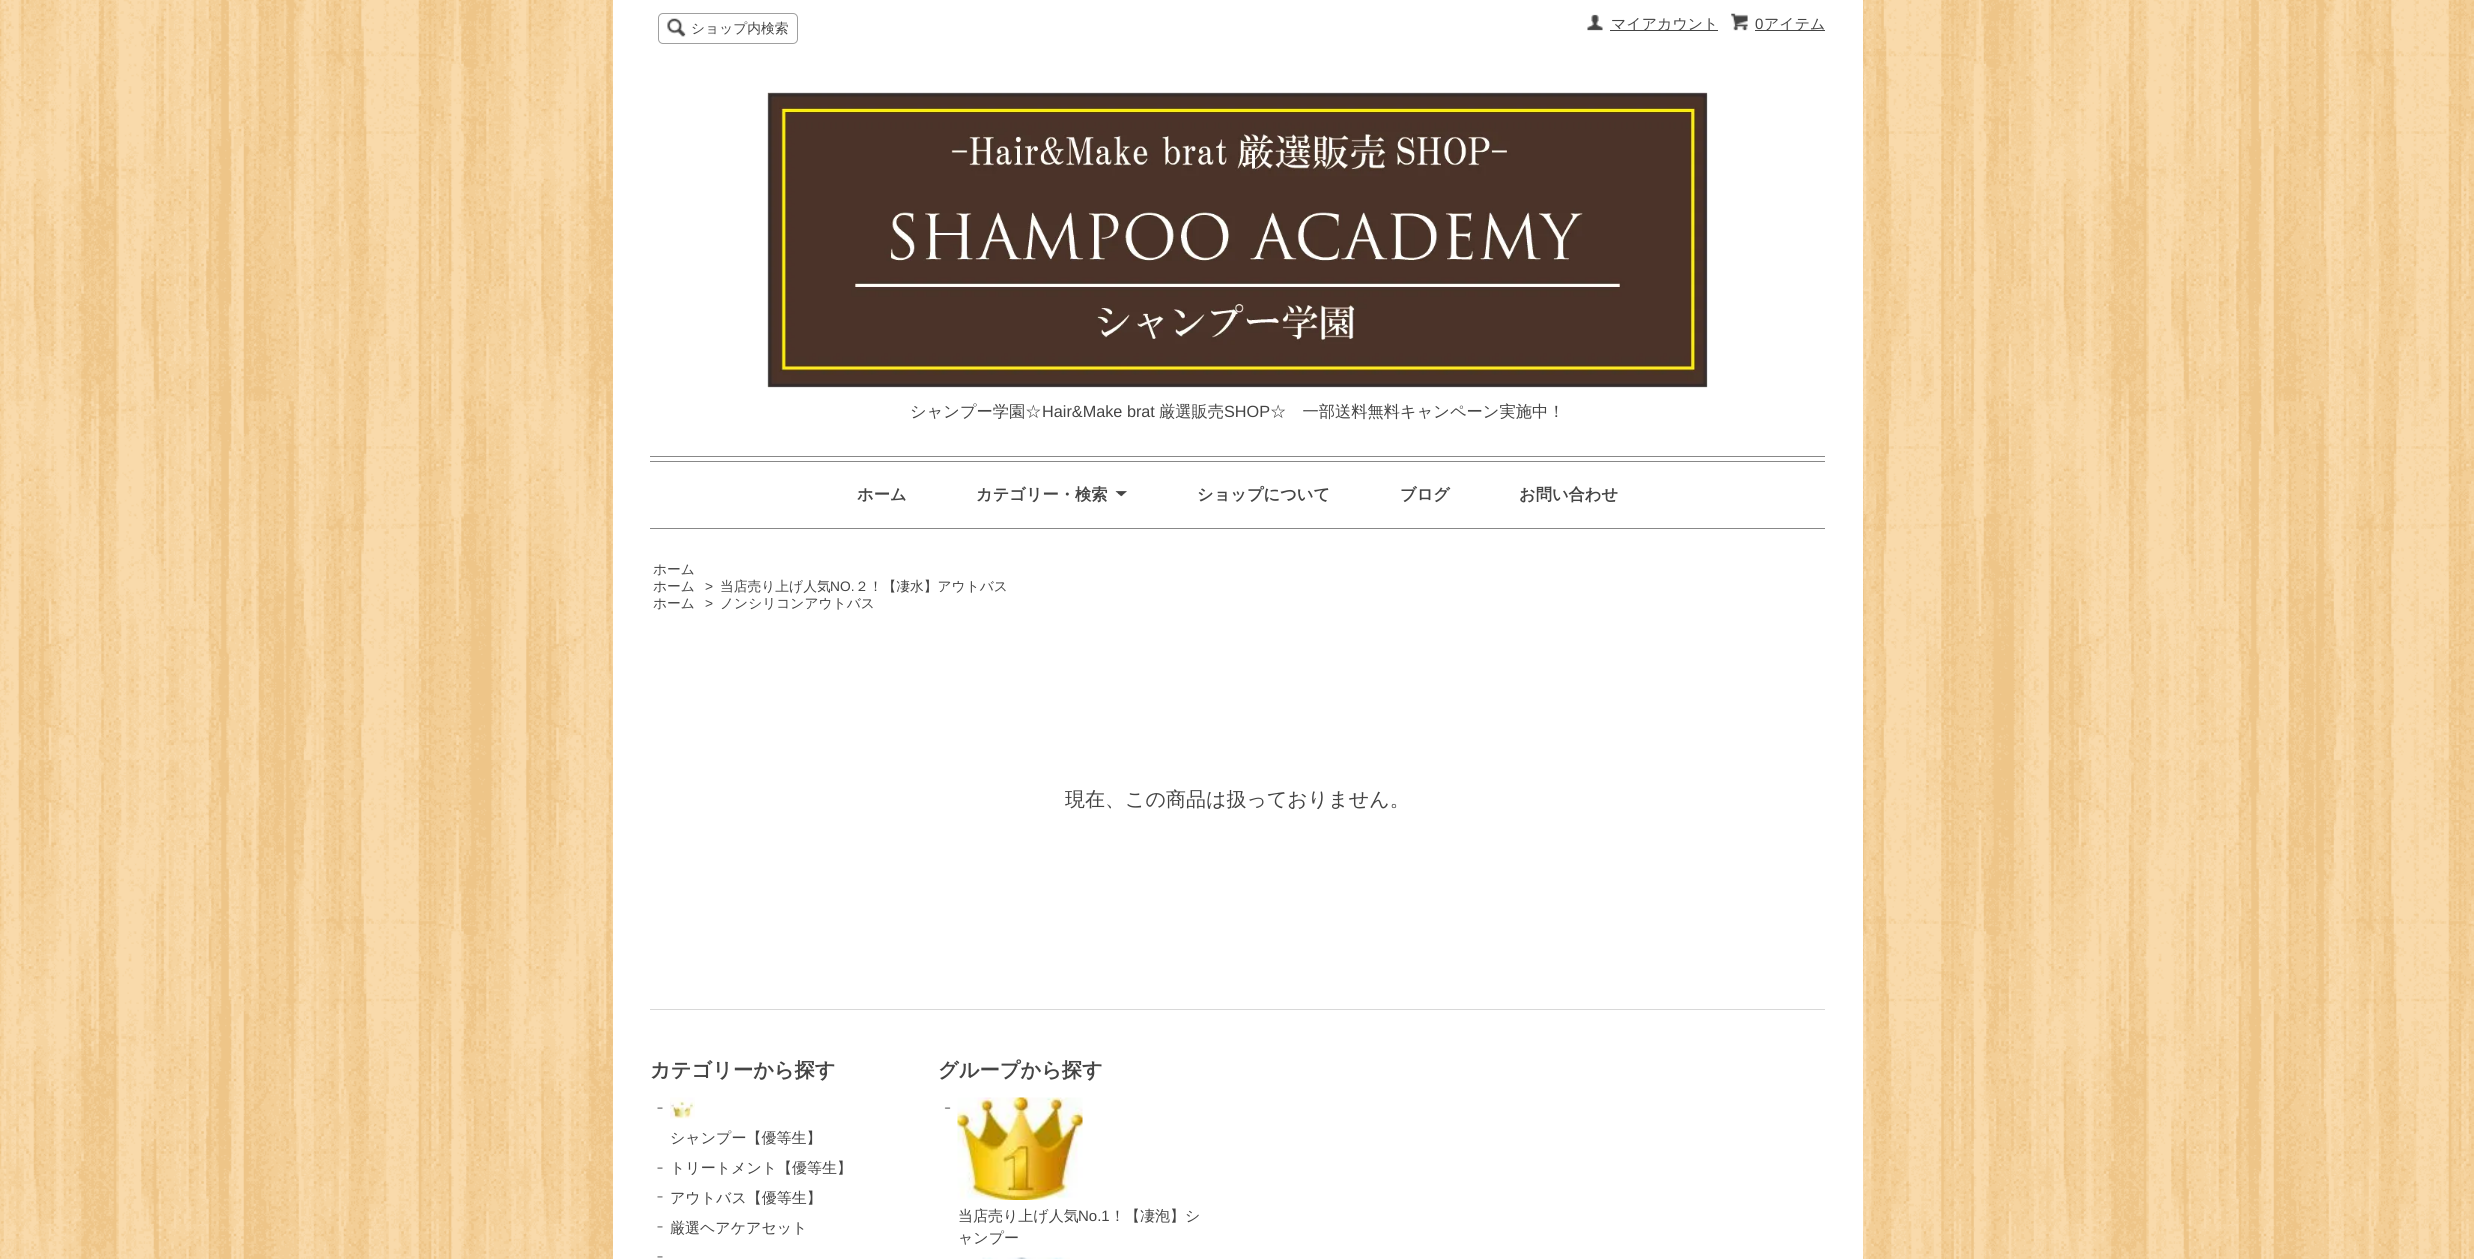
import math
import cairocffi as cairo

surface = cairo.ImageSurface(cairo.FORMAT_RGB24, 2474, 1259)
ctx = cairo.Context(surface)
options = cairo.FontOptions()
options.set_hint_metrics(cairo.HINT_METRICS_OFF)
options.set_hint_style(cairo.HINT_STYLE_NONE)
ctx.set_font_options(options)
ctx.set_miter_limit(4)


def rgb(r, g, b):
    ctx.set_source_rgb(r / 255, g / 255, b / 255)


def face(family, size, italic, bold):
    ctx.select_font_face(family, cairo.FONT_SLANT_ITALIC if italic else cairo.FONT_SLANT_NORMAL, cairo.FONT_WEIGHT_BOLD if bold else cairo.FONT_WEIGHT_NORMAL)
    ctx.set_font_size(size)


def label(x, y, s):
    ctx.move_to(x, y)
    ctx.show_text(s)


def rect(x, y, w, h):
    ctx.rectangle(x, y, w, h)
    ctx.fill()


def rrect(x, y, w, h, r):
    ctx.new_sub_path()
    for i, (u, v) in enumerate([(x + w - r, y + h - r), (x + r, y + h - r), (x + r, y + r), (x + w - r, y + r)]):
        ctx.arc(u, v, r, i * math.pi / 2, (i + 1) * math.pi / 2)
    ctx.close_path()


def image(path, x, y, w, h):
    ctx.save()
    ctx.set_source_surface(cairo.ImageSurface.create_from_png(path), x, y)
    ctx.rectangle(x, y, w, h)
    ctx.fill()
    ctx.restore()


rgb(255, 255, 255)
ctx.paint()
image('image0.png', 0, 0, 2474, 1259)
rgb(255, 255, 255)
rect(613, 0, 1250, 1259)
rrect(658.5, 13.5, 139, 30, 4.5)
rgb(160, 160, 160)
ctx.set_line_width(1)
ctx.stroke()
image('image1.png', 667, 18, 19, 19)
face('WenQuanYi Zen Hei Medium', 13.75, 0, 0)
rgb(68, 68, 68)
label(691, 33, 'ショップ内検索')
image('image2.png', 1587, 14, 16, 17)
rect(1610, 30, 108, 1)
face('WenQuanYi Zen Hei Medium', 15, 0, 0)
label(1611, 29, 'マイアカウント')
image('image3.png', 1731, 13, 17, 18)
face('Liberation Sans', 15, 0, 0)
label(1755, 29, '0')
rect(1755, 30, 70, 1)
face('WenQuanYi Zen Hei Medium', 15, 0, 0)
label(1764, 29, 'アイテム')
rgb(136, 136, 136)
rect(650, 456, 1175, 1)
image('image4.png', 767, 92, 941, 296)
face('WenQuanYi Zen Hei Medium', 16.25, 0, 0)
rgb(68, 68, 68)
label(910, 417, 'シャンプー学園☆')
face('Liberation Sans', 16.25, 0, 0)
label(1042, 417, 'Hair&Make brat')
face('WenQuanYi Zen Hei Medium', 16.25, 0, 0)
label(1159, 417, '厳選販売')
face('Liberation Sans', 16.25, 0, 0)
label(1224, 417, 'SHOP')
face('WenQuanYi Zen Hei Medium', 16.25, 0, 0)
label(1270, 417, '☆　一部送料無料キャンペーン実施中！')
rgb(136, 136, 136)
rect(650, 461, 1175, 1)
rect(650, 528, 1175, 1)
face('WenQuanYi Zen Hei', 16.25, 0, 1)
rgb(68, 68, 68)
label(857, 500, 'ホーム')
label(976, 500, 'カテゴリー・検索')
image('image5.png', 1115, 491, 12, 6)
label(1197, 500, 'ショップについて')
label(1400, 500, 'ブログ')
label(1519, 500, 'お問い合わせ')
face('WenQuanYi Zen Hei Medium', 13.75, 0, 0)
label(653, 574, 'ホーム')
label(653, 591, 'ホーム')
face('Liberation Sans', 13.75, 0, 0)
label(705, 591, '>')
face('WenQuanYi Zen Hei Medium', 13.75, 0, 0)
label(720, 591, '当店売り上げ人気')
face('Liberation Sans', 13.75, 0, 0)
label(830, 591, 'NO.')
face('WenQuanYi Zen Hei Medium', 13.75, 0, 0)
label(855, 591, '２！【凄水】アウトバス')
label(653, 608, 'ホーム')
face('Liberation Sans', 13.75, 0, 0)
label(705, 608, '>')
face('WenQuanYi Zen Hei Medium', 13.75, 0, 0)
label(720, 608, 'ノンシリコンアウトバス')
face('WenQuanYi Zen Hei Medium', 20, 0, 0)
label(1065, 806, '現在、この商品は扱っておりません。')
rgb(216, 216, 216)
rect(650, 1009, 1175, 1)
face('WenQuanYi Zen Hei', 20.25, 0, 1)
rgb(68, 68, 68)
label(650, 1077, 'カテゴリーから探す')
image('image6.png', 657, 1107, 6, 2)
image('image7.png', 670, 1097, 25, 22)
face('WenQuanYi Zen Hei Medium', 15, 0, 0)
label(670, 1143, 'シャンプー【優等生】')
image('image6.png', 657, 1167, 6, 2)
label(670, 1173, 'トリートメント【優等生】')
image('image8.png', 657, 1196, 6, 2)
label(670, 1203, 'アウトバス【優等生】')
image('image8.png', 657, 1226, 6, 2)
label(670, 1233, '厳選ヘアケアセット')
image('image8.png', 657, 1256, 6, 2)
face('WenQuanYi Zen Hei', 20.25, 0, 1)
label(938, 1077, 'グループから探す')
image('image9.png', 944, 1107, 7, 2)
image('image10.png', 957, 1097, 126, 103)
face('WenQuanYi Zen Hei Medium', 15, 0, 0)
label(958, 1221, '当店売り上げ人気')
face('Liberation Sans', 15, 0, 0)
label(1078, 1221, 'No.1')
face('WenQuanYi Zen Hei Medium', 15, 0, 0)
label(1110, 1221, '！【凄泡】シ')
label(958, 1243, 'ャンプー')
image('image11.png', 982, 1257, 88, 2)
surface.write_to_png('render.png')
